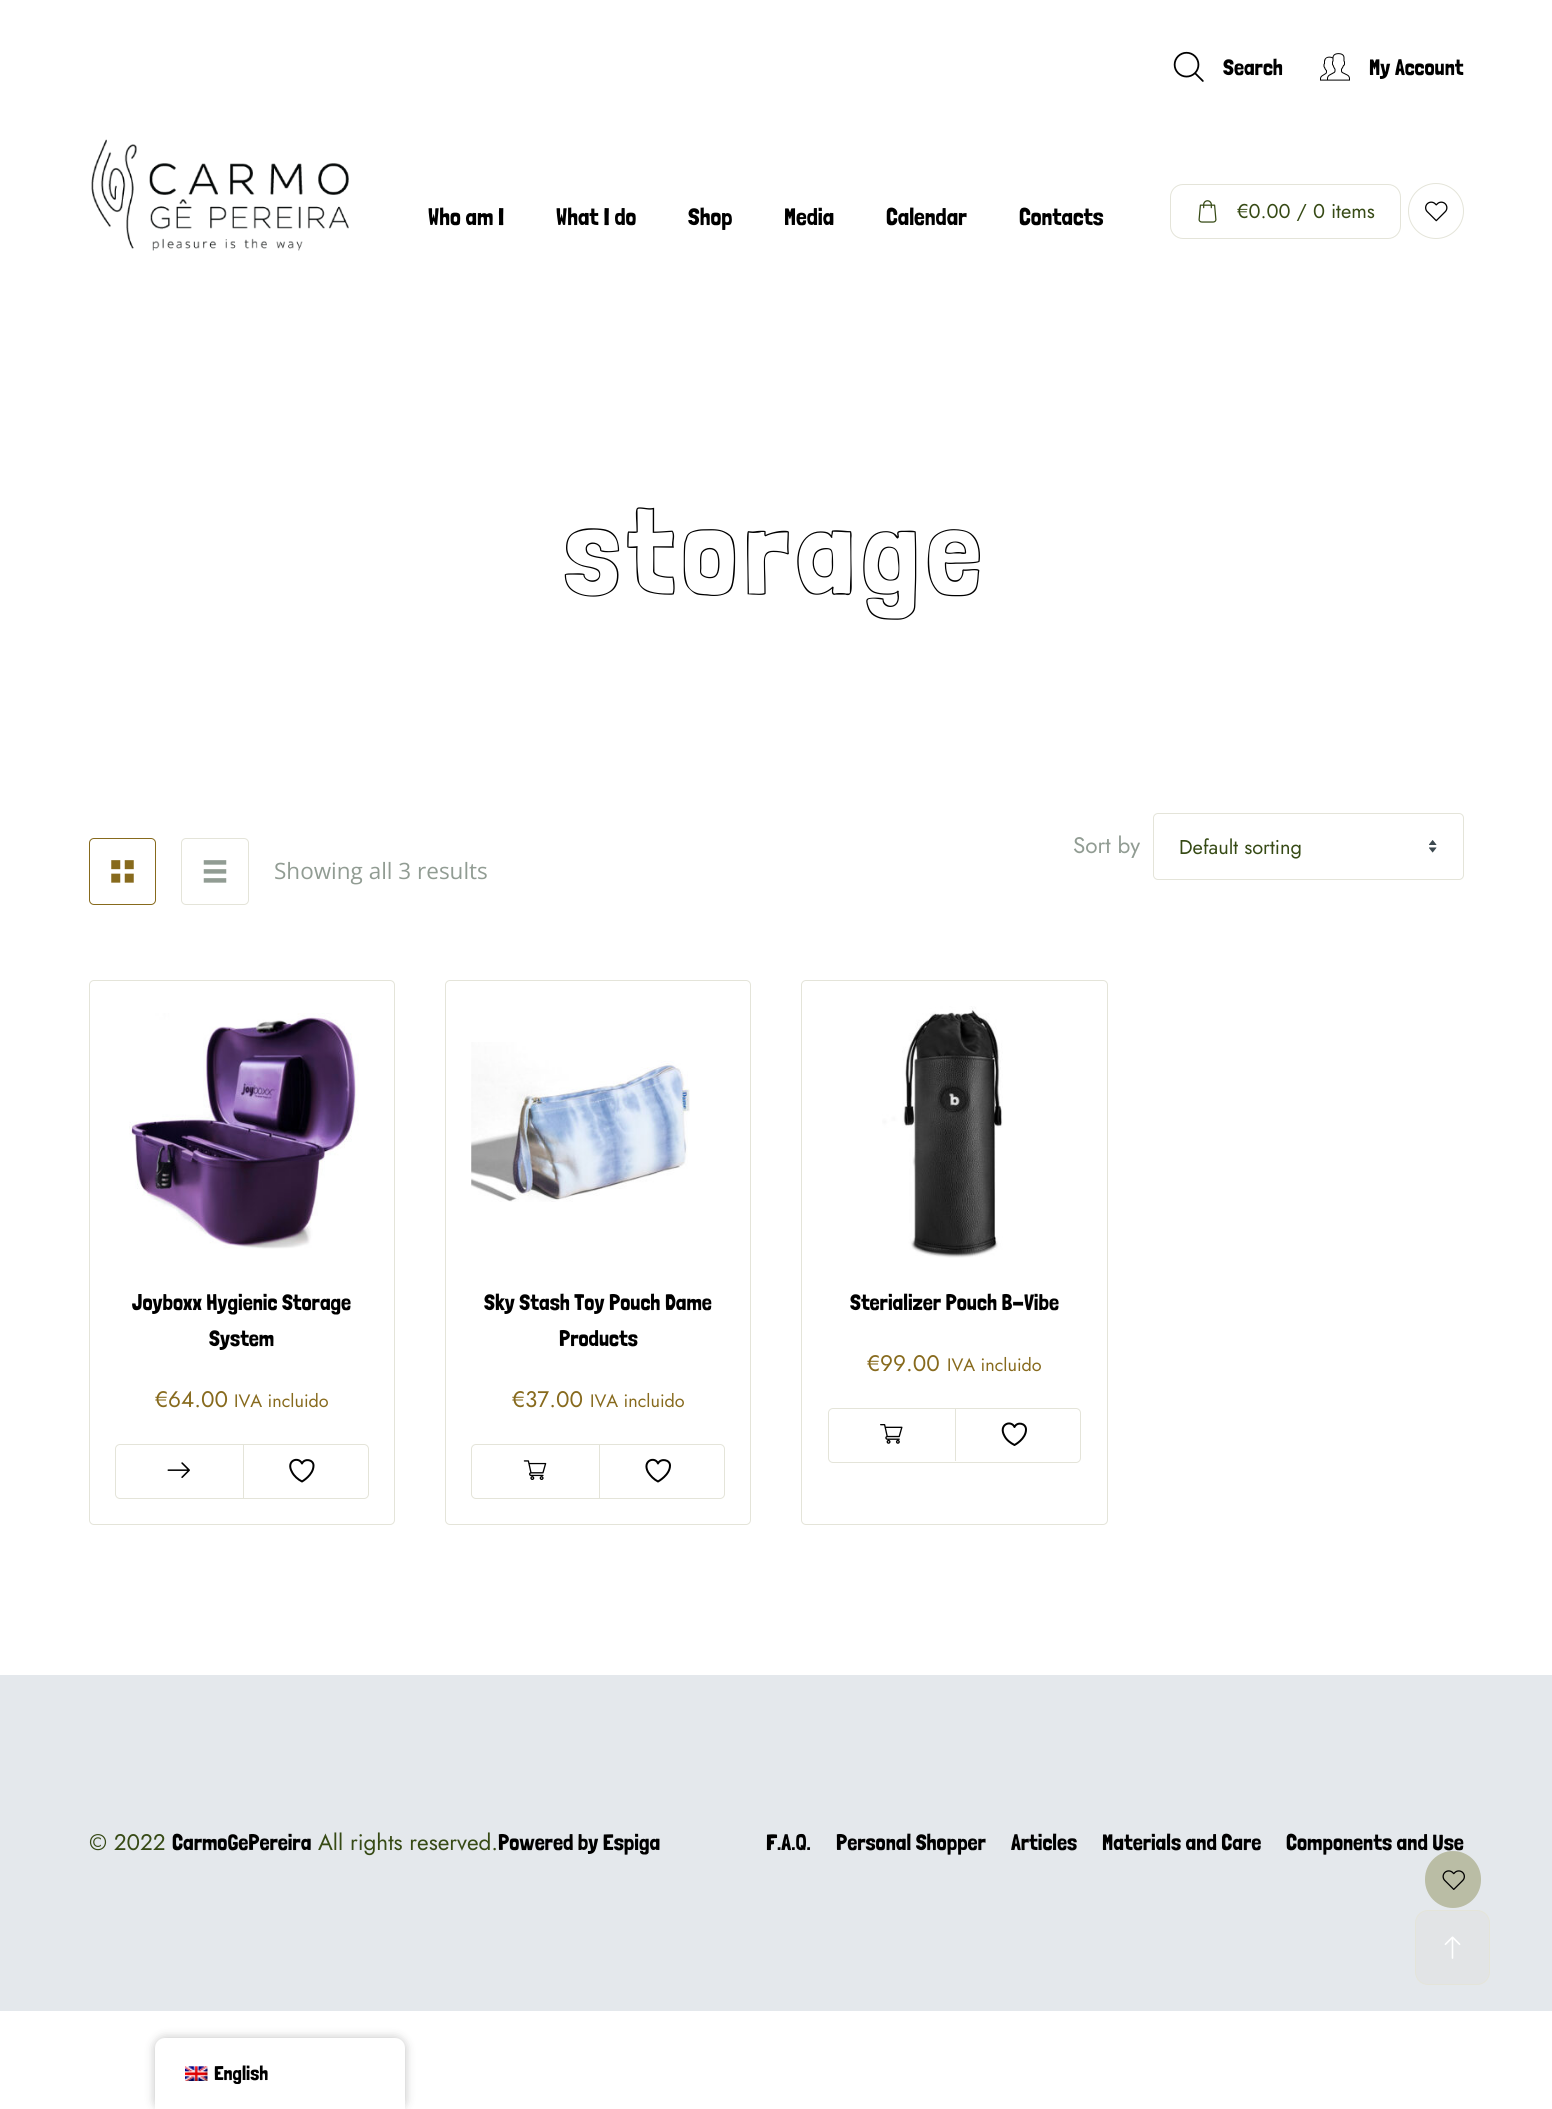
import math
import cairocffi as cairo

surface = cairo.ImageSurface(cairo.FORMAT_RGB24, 1552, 2109)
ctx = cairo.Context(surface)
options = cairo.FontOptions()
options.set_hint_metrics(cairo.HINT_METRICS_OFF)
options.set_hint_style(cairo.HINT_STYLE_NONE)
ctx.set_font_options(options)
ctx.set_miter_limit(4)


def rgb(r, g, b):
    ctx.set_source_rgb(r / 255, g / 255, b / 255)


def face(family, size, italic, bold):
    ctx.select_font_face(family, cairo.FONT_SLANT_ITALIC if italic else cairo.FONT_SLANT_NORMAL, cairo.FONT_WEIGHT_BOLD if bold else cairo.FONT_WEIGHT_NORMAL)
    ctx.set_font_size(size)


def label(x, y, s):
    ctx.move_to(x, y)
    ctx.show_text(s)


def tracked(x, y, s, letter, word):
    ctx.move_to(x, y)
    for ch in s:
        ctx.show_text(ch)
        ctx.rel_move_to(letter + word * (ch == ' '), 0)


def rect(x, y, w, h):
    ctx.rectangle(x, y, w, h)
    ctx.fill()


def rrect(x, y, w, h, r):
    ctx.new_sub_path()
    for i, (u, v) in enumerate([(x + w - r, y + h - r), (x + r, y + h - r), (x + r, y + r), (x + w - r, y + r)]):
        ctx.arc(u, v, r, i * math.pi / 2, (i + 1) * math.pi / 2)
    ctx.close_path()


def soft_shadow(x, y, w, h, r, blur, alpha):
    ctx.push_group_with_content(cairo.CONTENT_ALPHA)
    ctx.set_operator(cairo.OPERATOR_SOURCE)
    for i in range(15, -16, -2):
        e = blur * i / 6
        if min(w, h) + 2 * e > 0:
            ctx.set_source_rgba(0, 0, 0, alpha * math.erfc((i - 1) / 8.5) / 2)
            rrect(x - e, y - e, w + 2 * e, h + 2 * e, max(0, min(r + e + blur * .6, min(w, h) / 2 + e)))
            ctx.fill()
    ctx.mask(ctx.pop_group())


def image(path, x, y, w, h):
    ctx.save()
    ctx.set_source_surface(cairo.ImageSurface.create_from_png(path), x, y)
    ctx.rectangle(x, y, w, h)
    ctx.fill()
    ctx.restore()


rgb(255, 255, 255)
ctx.paint()
image('image0.png', 1173, 51, 31, 31)
face('Londrina Solid', 22.5, 0, 0)
rgb(0, 0, 0)
label(1223, 75, 'Search')
image('image1.png', 1320, 53, 30, 28)
label(1369, 75, 'My Account')
image('image2.png', 91, 139, 258, 112)
face('Londrina Solid', 24, 0, 0)
label(428, 225, 'Who am I')
label(556, 225, 'What I do')
label(688, 225, 'Shop')
label(784, 225, 'Media')
label(886, 225, 'Calendar')
label(1019, 225, 'Contacts')
rrect(1170.5, 184.5, 230, 54, 12.5)
rgb(228, 228, 217)
ctx.set_line_width(1)
ctx.stroke()
image('image3.png', 1198, 200, 19, 23)
face('Jost', 20, 0, 0)
rgb(54, 74, 21)
label(1237, 218, '€0.00 / 0 items')
ctx.new_path()
ctx.arc(1436, 211, 27.5, 0, 2 * math.pi)
rgb(228, 228, 217)
ctx.stroke()
image('image4.png', 1425, 201, 23, 21)
face('Londrina Outline', 125, 0, 0)
rgb(0, 0, 0)
tracked(564, 594, 'storage', 6.25, 0)
face('Jost', 22.5, 0, 0)
rgb(145, 156, 147)
label(1073, 853, 'Sort by')
image('image5.png', 1429, 840, 8, 13)
rrect(1153.5, 813.5, 310, 66, 4.5)
rgb(228, 228, 217)
ctx.stroke()
face('Jost', 20, 0, 0)
rgb(54, 74, 21)
label(1179, 854, 'Default sorting')
rrect(89.5, 838.5, 66, 66, 4.5)
rgb(135, 106, 29)
ctx.stroke()
image('image6.png', 111, 860, 23, 23)
rrect(181.5, 838.5, 67, 66, 4.5)
rgb(228, 228, 217)
ctx.stroke()
image('image7.png', 203, 860, 24, 23)
face('Open Sans', 22.5, 0, 0)
rgb(145, 156, 147)
label(274, 879, 'Showing all 3 results')
rrect(89.5, 980.5, 305, 544, 4.5)
rgb(228, 228, 217)
ctx.stroke()
image('image8.png', 129, 1013, 230, 236)
face('Londrina Solid', 22.5, 0, 0)
rgb(0, 0, 0)
label(132, 1310, 'Joyboxx Hygienic Storage')
label(209, 1346, 'System')
face('Jost', 22.5, 0, 0)
rgb(135, 106, 29)
label(155, 1407, '€64.00')
face('Jost', 18, 0, 0)
label(234, 1407, 'IVA incluido')
rrect(115.5, 1444.5, 253, 54, 4.5)
rgb(228, 228, 217)
ctx.stroke()
image('image9.png', 167, 1462, 23, 16)
rect(243, 1445, 1, 53)
ctx.new_path()
ctx.move_to(313.5, 1465.5)
ctx.curve_to(313.5, 1459.5, 304.5, 1458, 302, 1463.5)
ctx.curve_to(298.5, 1456, 285.5, 1460.5, 292, 1472)
ctx.curve_to(294, 1476, 298, 1479.5, 302, 1481.5)
ctx.curve_to(302, 1481.5, 313.5, 1475, 313.5, 1465.5)
ctx.close_path()
rgb(0, 0, 0)
ctx.set_line_width(2)
ctx.set_line_cap(cairo.LINE_CAP_ROUND)
ctx.set_line_join(cairo.LINE_JOIN_ROUND)
ctx.stroke()
rrect(445.5, 980.5, 305, 544, 4.5)
rgb(228, 228, 217)
ctx.set_line_width(1)
ctx.set_line_cap(cairo.LINE_CAP_BUTT)
ctx.set_line_join(cairo.LINE_JOIN_MITER)
ctx.stroke()
image('image10.png', 471, 1042, 219, 160)
face('Londrina Solid', 22.5, 0, 0)
rgb(0, 0, 0)
label(484, 1310, 'Sky Stash Toy Pouch Dame')
label(559, 1346, 'Products')
face('Jost', 22.5, 0, 0)
rgb(135, 106, 29)
label(512, 1407, '€37.00')
face('Jost', 18, 0, 0)
label(590, 1407, 'IVA incluido')
rrect(471.5, 1444.5, 253, 54, 4.5)
rgb(228, 228, 217)
ctx.stroke()
image('image11.png', 523, 1460, 24, 20)
rect(599, 1445, 1, 53)
ctx.new_path()
ctx.move_to(670, 1465.5)
ctx.curve_to(670, 1459.5, 660.5, 1458, 658, 1463.5)
ctx.curve_to(655, 1456, 642, 1460.5, 648, 1472)
ctx.curve_to(650.5, 1476, 654, 1479.5, 658, 1481.5)
ctx.curve_to(658, 1481.5, 670, 1475, 670, 1465.5)
ctx.close_path()
rgb(0, 0, 0)
ctx.set_line_width(2)
ctx.set_line_cap(cairo.LINE_CAP_ROUND)
ctx.set_line_join(cairo.LINE_JOIN_ROUND)
ctx.stroke()
rrect(801.5, 980.5, 306, 544, 4.5)
rgb(228, 228, 217)
ctx.set_line_width(1)
ctx.set_line_cap(cairo.LINE_CAP_BUTT)
ctx.set_line_join(cairo.LINE_JOIN_MITER)
ctx.stroke()
image('image12.png', 882, 1006, 121, 252)
face('Londrina Solid', 22.5, 0, 0)
rgb(0, 0, 0)
label(850, 1310, 'Sterializer Pouch B-Vibe')
face('Jost', 22.5, 0, 0)
rgb(135, 106, 29)
label(867, 1371, '€99.00')
face('Jost', 18, 0, 0)
label(947, 1371, 'IVA incluido')
rrect(828.5, 1408.5, 252, 54, 4.5)
rgb(228, 228, 217)
ctx.stroke()
image('image13.png', 880, 1424, 23, 20)
rect(955, 1409, 1, 52)
ctx.new_path()
ctx.move_to(1026, 1429.5)
ctx.curve_to(1026, 1423, 1017, 1421.5, 1014.5, 1427)
ctx.curve_to(1011, 1419.5, 998, 1424.5, 1004.5, 1436)
ctx.curve_to(1006.5, 1440, 1010.5, 1443, 1014.5, 1445)
ctx.curve_to(1014.5, 1445, 1026, 1439, 1026, 1429.5)
ctx.close_path()
rgb(0, 0, 0)
ctx.set_line_width(2)
ctx.set_line_cap(cairo.LINE_CAP_ROUND)
ctx.set_line_join(cairo.LINE_JOIN_ROUND)
ctx.stroke()
rgb(228, 232, 236)
rect(0, 1675, 1552, 336)
face('Jost', 22.5, 0, 0)
rgb(54, 74, 21)
label(89, 1850, '© 2022')
face('Londrina Solid', 22.5, 0, 0)
rgb(0, 0, 0)
label(172, 1850, 'CarmoGePereira')
face('Jost', 22.5, 0, 0)
rgb(54, 74, 21)
label(318, 1850, 'All rights reserved.')
face('Londrina Solid', 22.5, 0, 0)
rgb(0, 0, 0)
label(498, 1850, 'Powered by Espiga')
label(766, 1850, 'F.A.Q.')
label(836, 1850, 'Personal Shopper')
label(1011, 1850, 'Articles')
label(1102, 1850, 'Materials and Care')
label(1286, 1850, 'Components and Use')
rgb(186, 189, 165)
rrect(1425, 1851, 56, 57, 28)
ctx.fill()
image('image14.png', 1442, 1870, 23, 20)
rgb(226, 228, 230)
rrect(1415.5, 1910.5, 74, 74, 12.5)
ctx.fill_preserve()
rgb(228, 228, 217)
ctx.set_line_width(1)
ctx.set_line_cap(cairo.LINE_CAP_BUTT)
ctx.set_line_join(cairo.LINE_JOIN_MITER)
ctx.stroke()
image('image15.png', 1444, 1936, 17, 23)
rgb(0, 0, 0)
soft_shadow(155, 2038, 250, 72, 10, 5, 0.25)
rgb(255, 255, 255)
ctx.new_path()
ctx.move_to(165, 2038)
ctx.line_to(395, 2038)
ctx.curve_to(400.5, 2038, 405, 2042.5, 405, 2048)
ctx.line_to(405, 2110)
ctx.line_to(155, 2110)
ctx.line_to(155, 2048)
ctx.curve_to(155, 2042.5, 159.5, 2038, 165, 2038)
ctx.close_path()
ctx.fill()
image('image16.png', 185, 2066, 23, 15)
face('Londrina Solid', 20, 0, 0)
rgb(0, 0, 0)
label(214, 2080, 'English')
surface.write_to_png('render.png')
